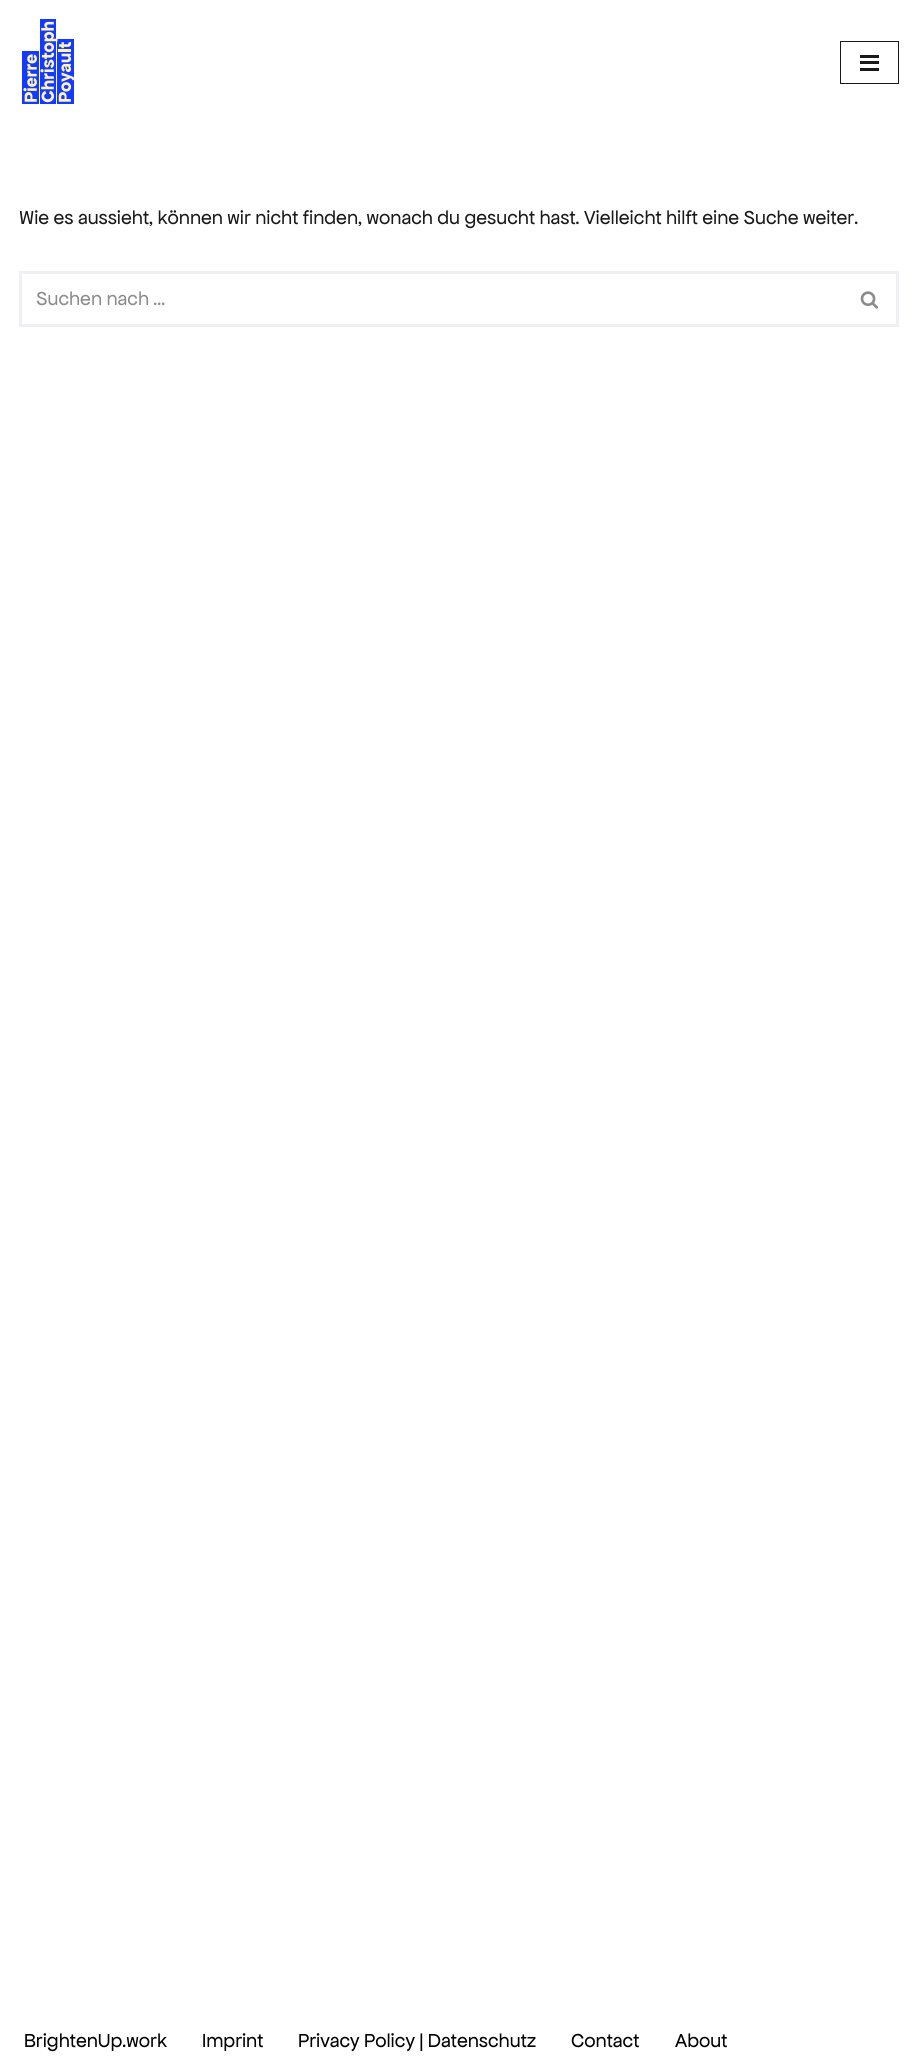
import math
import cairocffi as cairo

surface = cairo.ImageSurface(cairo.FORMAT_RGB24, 917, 2066)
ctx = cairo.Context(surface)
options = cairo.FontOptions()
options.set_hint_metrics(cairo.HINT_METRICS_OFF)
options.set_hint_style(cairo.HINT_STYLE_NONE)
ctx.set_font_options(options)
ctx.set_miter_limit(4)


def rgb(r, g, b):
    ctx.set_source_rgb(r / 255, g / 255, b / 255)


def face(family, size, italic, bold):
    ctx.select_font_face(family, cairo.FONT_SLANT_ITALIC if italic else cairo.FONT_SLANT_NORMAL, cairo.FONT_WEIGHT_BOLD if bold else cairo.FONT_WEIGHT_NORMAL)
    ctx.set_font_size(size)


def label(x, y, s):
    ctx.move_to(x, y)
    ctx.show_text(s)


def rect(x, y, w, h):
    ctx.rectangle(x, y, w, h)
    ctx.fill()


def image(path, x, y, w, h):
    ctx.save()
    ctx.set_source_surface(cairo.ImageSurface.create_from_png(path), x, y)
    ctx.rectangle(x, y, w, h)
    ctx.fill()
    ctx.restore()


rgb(255, 255, 255)
ctx.paint()
image('image0.png', 22, 19, 53, 85)
ctx.rectangle(840.5, 41.5, 58, 42)
rgb(26, 25, 25)
ctx.set_line_width(1)
ctx.stroke()
rect(860, 55, 19, 3)
rect(860, 61, 19, 3)
rect(860, 68, 19, 3)
face('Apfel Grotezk', 20, 0, 0)
label(19, 224, 'Wie es aussieht, können wir nicht finden, wonach du gesucht hast. Vielleicht hilft eine Suche weiter.')
rgb(240, 239, 244)
rect(19, 271, 880, 3)
rect(19, 324, 824, 3)
rect(19, 271, 3, 55)
rgb(141, 140, 140)
label(36, 305, 'Suchen nach …')
rgb(240, 239, 244)
rect(896, 271, 3, 55)
rect(843, 324, 56, 3)
image('image1.png', 860, 291, 18, 18)
rgb(0, 0, 0)
label(24, 2047, 'BrightenUp.work')
label(202, 2047, 'Imprint')
label(298, 2047, 'Privacy Policy | Datenschutz')
label(571, 2047, 'Contact')
label(675, 2047, 'About')
surface.write_to_png('render.png')
